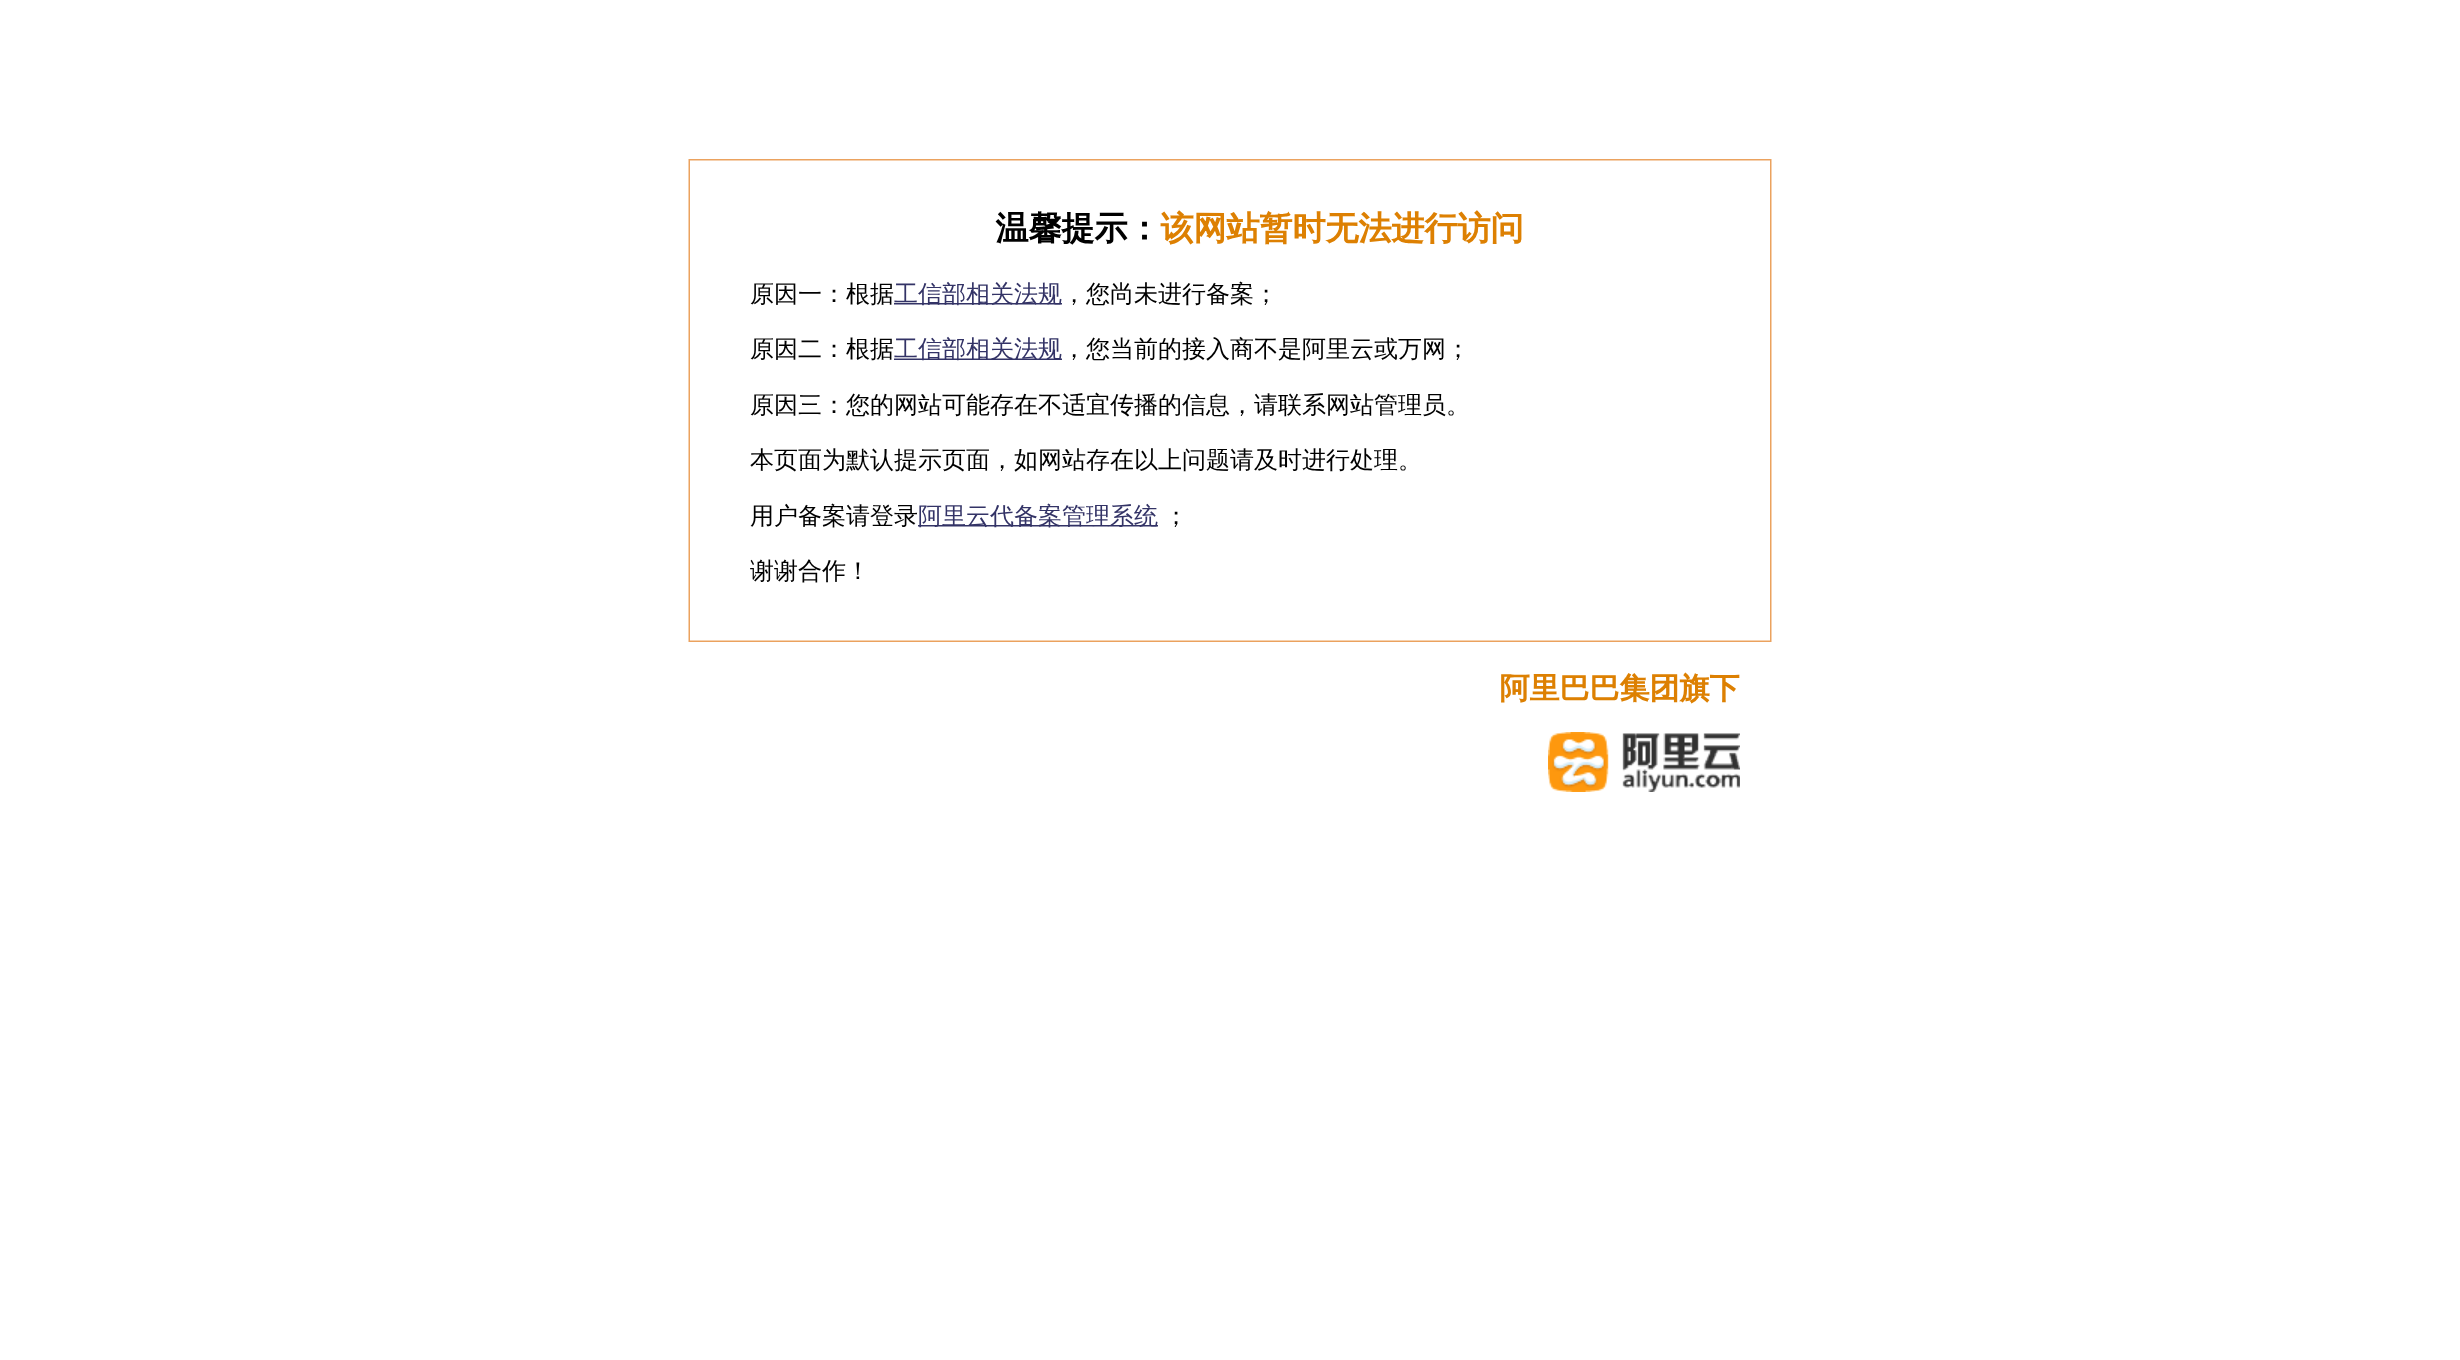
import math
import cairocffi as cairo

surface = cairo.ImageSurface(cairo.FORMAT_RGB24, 2460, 1360)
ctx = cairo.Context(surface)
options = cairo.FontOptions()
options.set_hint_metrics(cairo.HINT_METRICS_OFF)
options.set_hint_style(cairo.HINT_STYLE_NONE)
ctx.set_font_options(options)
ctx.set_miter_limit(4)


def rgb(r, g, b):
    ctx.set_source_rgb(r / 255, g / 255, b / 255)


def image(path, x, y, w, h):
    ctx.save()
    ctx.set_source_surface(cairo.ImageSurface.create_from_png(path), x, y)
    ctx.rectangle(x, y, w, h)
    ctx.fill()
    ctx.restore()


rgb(255, 255, 255)
ctx.paint()
image('image0.png', 688, 159, 1084, 633)
surface.write_to_png('render.png')
